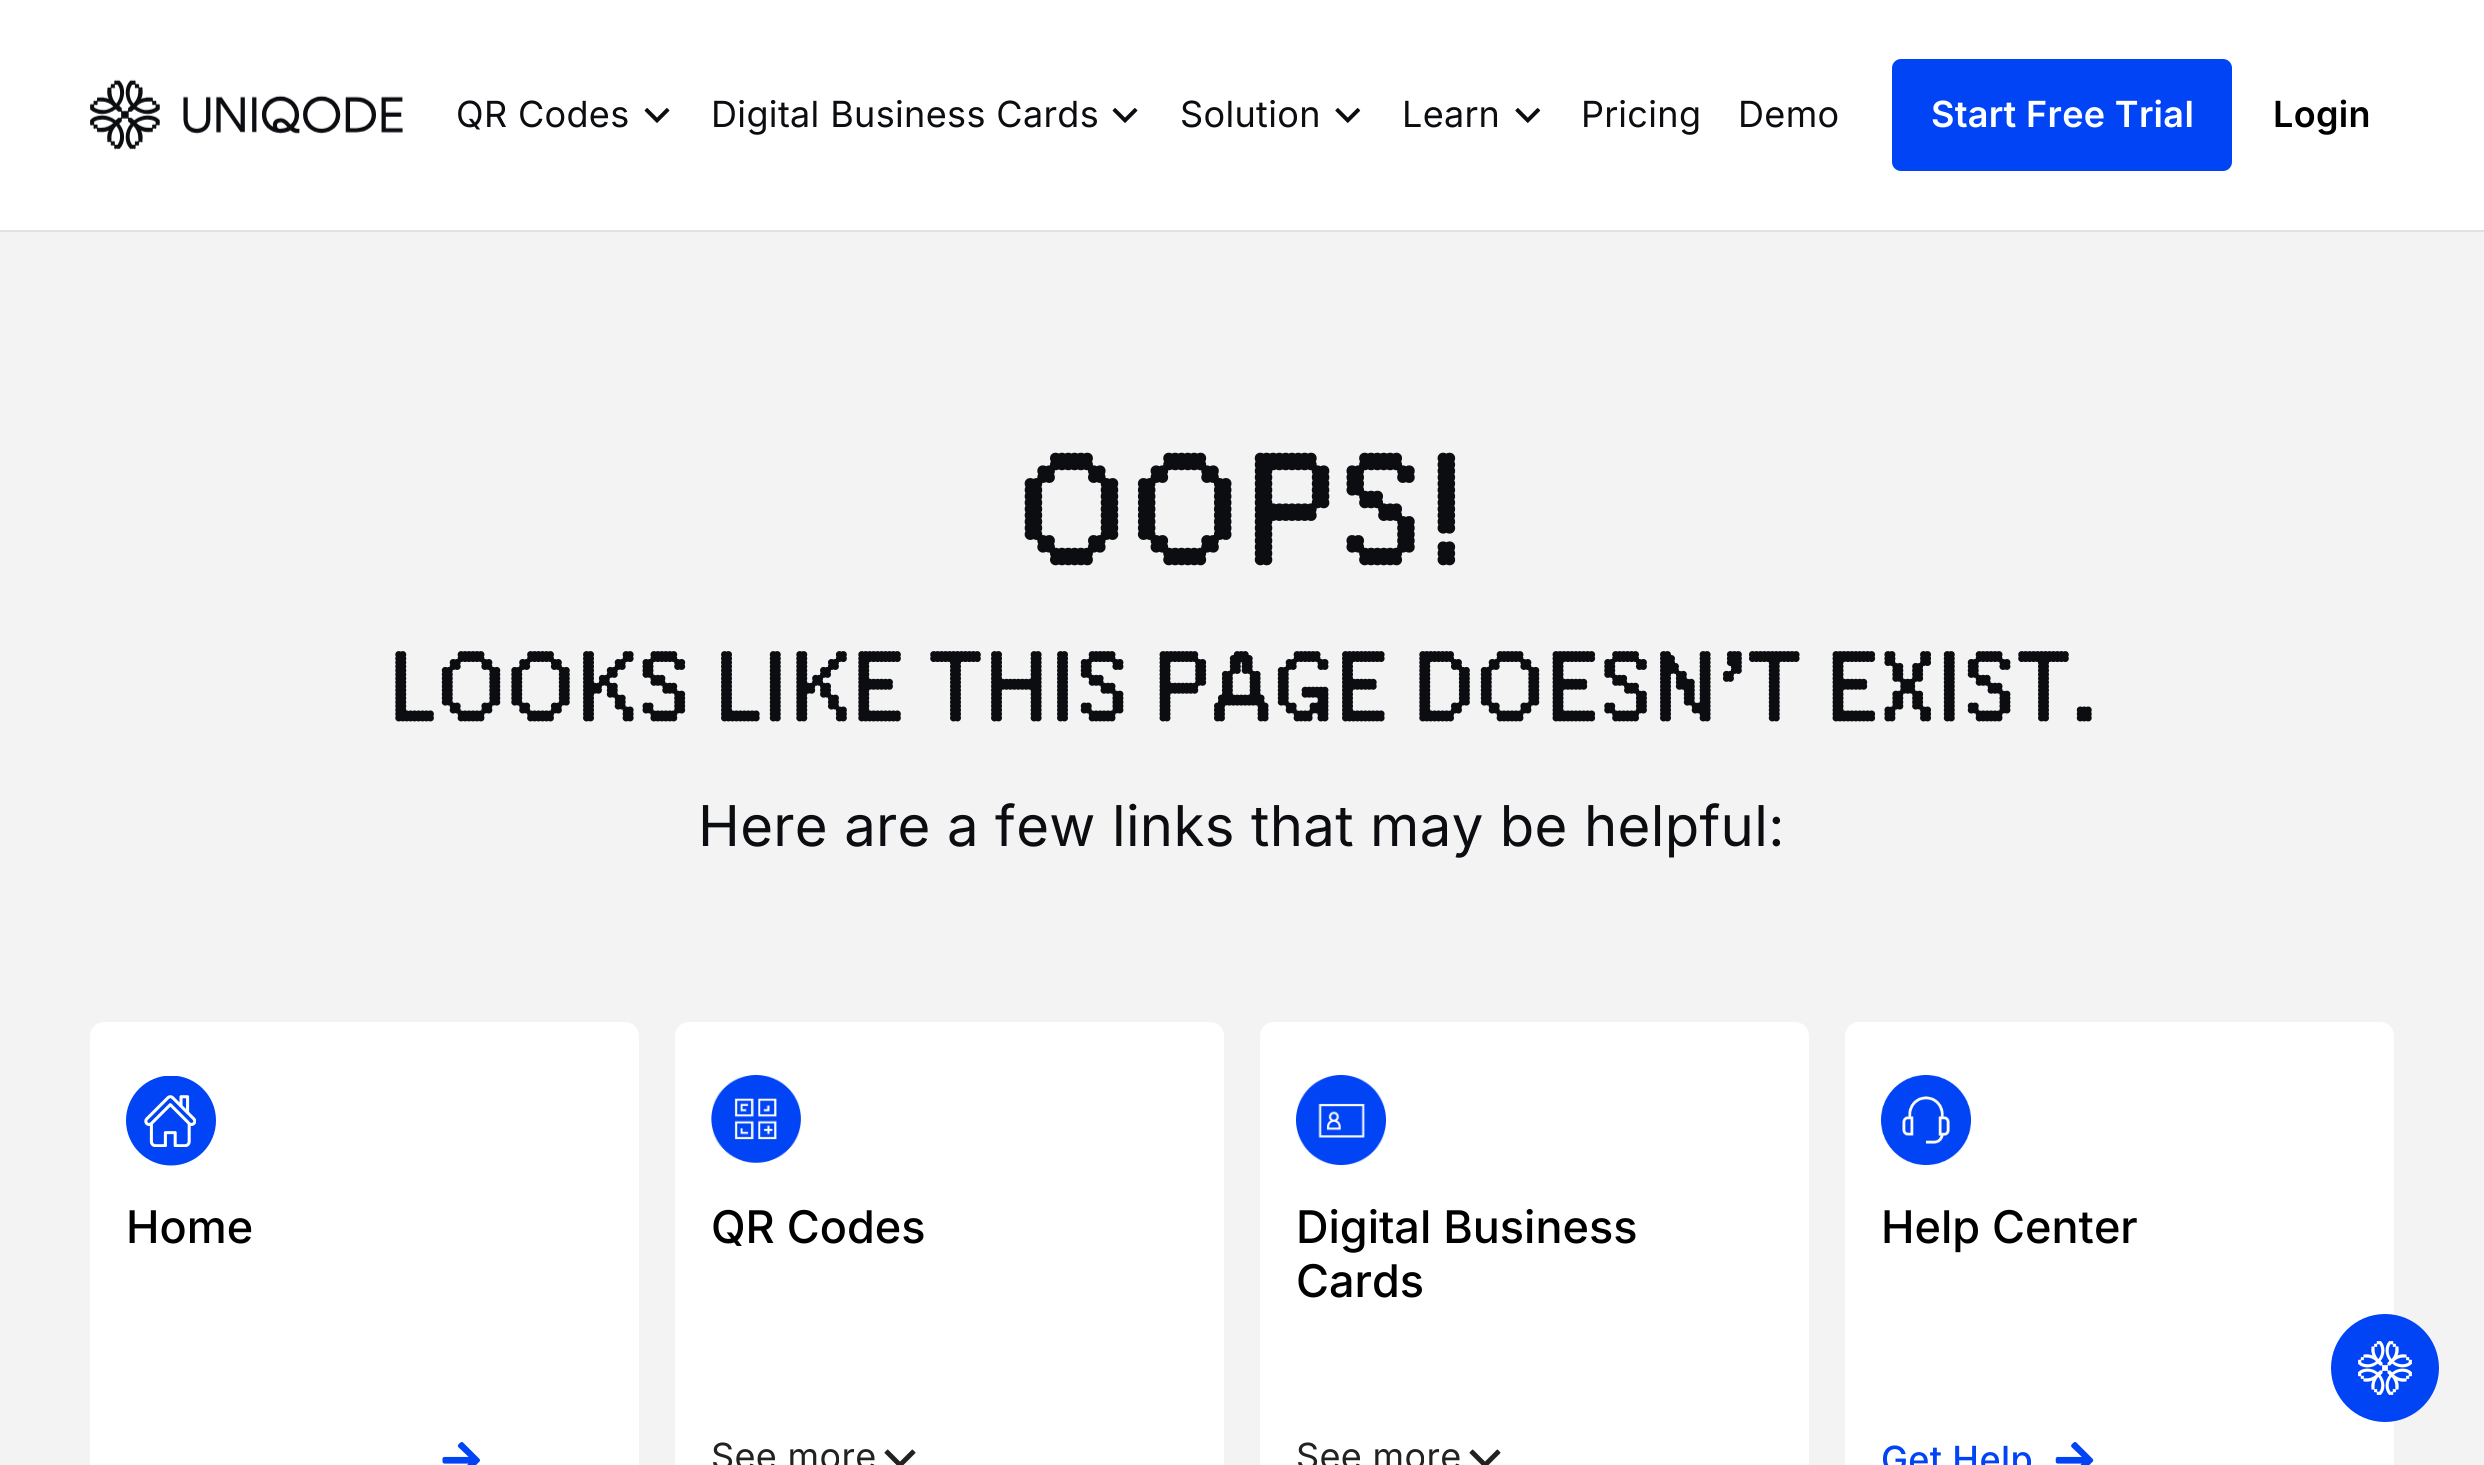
import math
import cairocffi as cairo

surface = cairo.ImageSurface(cairo.FORMAT_RGB24, 2484, 1465)
ctx = cairo.Context(surface)
options = cairo.FontOptions()
options.set_hint_metrics(cairo.HINT_METRICS_OFF)
options.set_hint_style(cairo.HINT_STYLE_NONE)
ctx.set_font_options(options)
ctx.set_miter_limit(4)


def rgb(r, g, b):
    ctx.set_source_rgb(r / 255, g / 255, b / 255)


def face(family, size, italic, bold):
    ctx.select_font_face(family, cairo.FONT_SLANT_ITALIC if italic else cairo.FONT_SLANT_NORMAL, cairo.FONT_WEIGHT_BOLD if bold else cairo.FONT_WEIGHT_NORMAL)
    ctx.set_font_size(size)


def label(x, y, s):
    ctx.move_to(x, y)
    ctx.show_text(s)


def tracked(x, y, s, letter, word):
    ctx.move_to(x, y)
    for ch in s:
        ctx.show_text(ch)
        ctx.rel_move_to(letter + word * (ch == ' '), 0)


def rect(x, y, w, h):
    ctx.rectangle(x, y, w, h)
    ctx.fill()


def rrect(x, y, w, h, r):
    ctx.new_sub_path()
    for i, (u, v) in enumerate([(x + w - r, y + h - r), (x + r, y + h - r), (x + r, y + r), (x + w - r, y + r)]):
        ctx.arc(u, v, r, i * math.pi / 2, (i + 1) * math.pi / 2)
    ctx.close_path()


def image(path, x, y, w, h):
    ctx.save()
    ctx.set_source_surface(cairo.ImageSurface.create_from_png(path), x, y)
    ctx.rectangle(x, y, w, h)
    ctx.fill()
    ctx.restore()


rgb(243, 243, 243)
ctx.paint()
rgb(255, 255, 255)
rect(0, 0, 2484, 230)
rgb(225, 225, 225)
rect(0, 230, 2484, 2)
image('image0.png', 90, 79, 313, 71)
face('Inter', 36, 0, 0)
rgb(12, 13, 16)
tracked(456, 127, 'QR Codes', 0.35, 0)
image('image1.png', 644, 108, 26, 15)
tracked(711, 127, 'Digital Business Cards', 0.35, 0)
image('image1.png', 1112, 108, 26, 15)
tracked(1180, 127, 'Solution', 0.35, 0)
image('image2.png', 1335, 108, 26, 15)
tracked(1402, 127, 'Learn', 0.35, 0)
image('image2.png', 1515, 108, 26, 15)
tracked(1581, 127, 'Pricing', 0.35, 0)
tracked(1738, 127, 'Demo', 0.35, 0)
rgb(0, 68, 245)
rrect(1893, 60, 338, 110, 8)
ctx.fill_preserve()
ctx.stroke()
face('Inter SemiBold', 36, 0, 0)
rgb(255, 255, 255)
tracked(1931, 127, 'Start Free Trial', 0.35, 0)
rgb(0, 0, 0)
tracked(2273, 127, 'Login', 0.35, 0)
rgb(255, 255, 255)
rrect(1845, 1022, 549, 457, 14)
ctx.fill()
rgb(0, 68, 245)
ctx.arc(2385, 1368, 54, 0, 2 * math.pi)
ctx.fill()
image('image3.png', 2358, 1341, 54, 54)
face('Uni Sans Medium', 144, 0, 0)
rgb(12, 13, 16)
tracked(1015, 563, 'OOPS!', 0.35, 0)
face('Uni Sans Medium', 90, 0, 0)
tracked(387, 720, 'LOOKS LIKE THIS PAGE DOESN’T EXIST.', -1.1, 0)
face('Inter', 56.25, 0, 0)
tracked(698, 846, 'Here are a few links that may be helpful:', 0.35, 0)
rgb(255, 255, 255)
rrect(90, 1022, 549, 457, 14)
ctx.fill()
image('image4.png', 126, 1076, 90, 90)
face('Inter Medium', 45, 0, 0)
rgb(0, 0, 0)
label(126, 1243, 'Home')
image('image5.png', 442, 1442, 38, 23)
rgb(255, 255, 255)
rrect(675, 1022, 549, 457, 14)
ctx.fill()
image('image6.png', 711, 1075, 90, 88)
rgb(0, 0, 0)
label(711, 1243, 'QR Codes')
face('Inter', 36, 0, 0)
rgb(34, 34, 34)
tracked(711, 1469, 'See more', 0.35, 0)
image('image7.png', 884, 1449, 32, 16)
rgb(255, 255, 255)
rrect(1260, 1022, 549, 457, 14)
ctx.fill()
image('image8.png', 1296, 1075, 90, 90)
face('Inter Medium', 45, 0, 0)
rgb(0, 0, 0)
label(1296, 1243, 'Digital Business')
label(1296, 1297, 'Cards')
face('Inter', 36, 0, 0)
rgb(34, 34, 34)
tracked(1296, 1469, 'See more', 0.35, 0)
image('image7.png', 1469, 1449, 32, 16)
image('image9.png', 1881, 1075, 90, 90)
face('Inter Medium', 45, 0, 0)
rgb(0, 0, 0)
label(1881, 1243, 'Help Center')
face('Inter Medium', 36, 0, 0)
rgb(0, 68, 245)
tracked(1881, 1472, 'Get Help', 0.35, 0)
image('image10.png', 2055, 1442, 39, 23)
surface.write_to_png('render.png')
